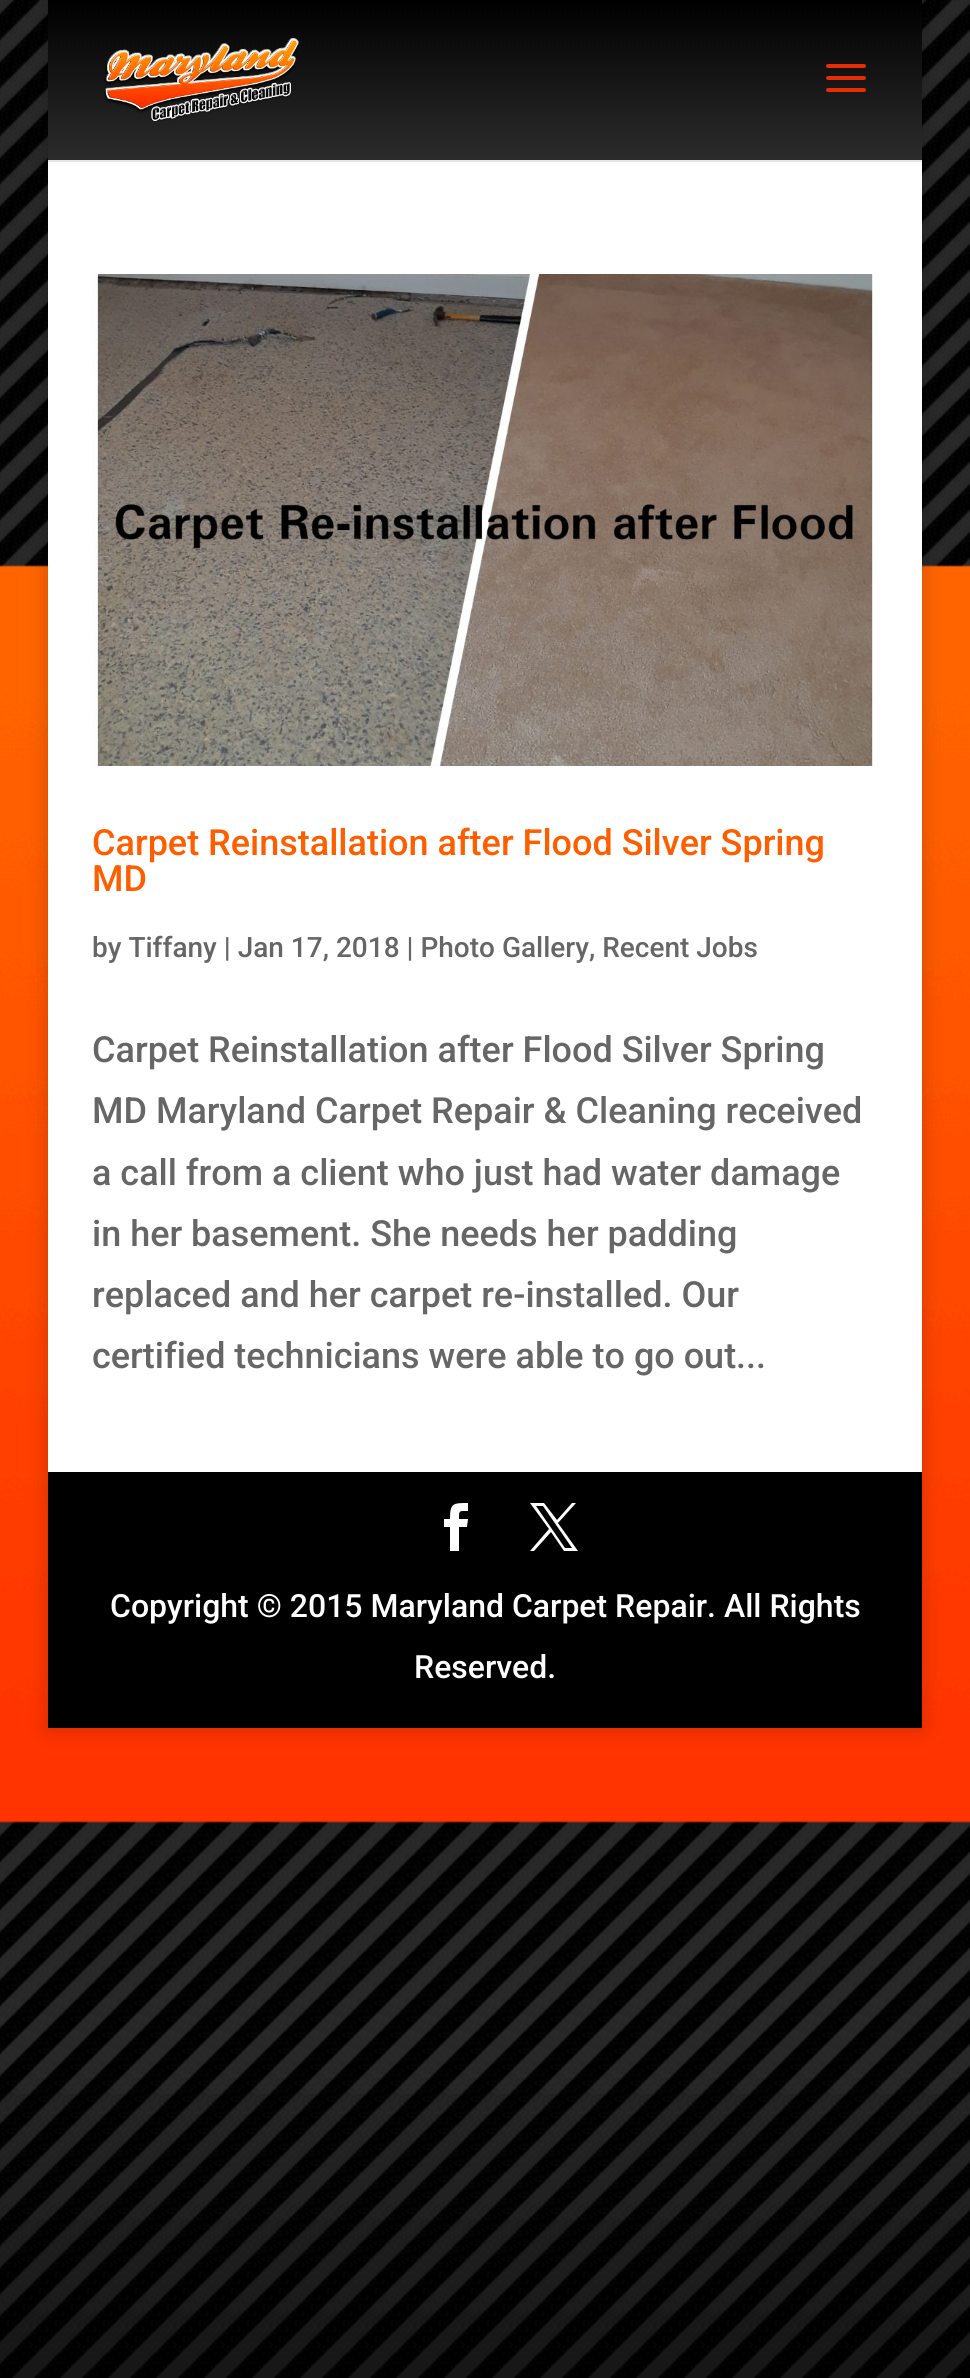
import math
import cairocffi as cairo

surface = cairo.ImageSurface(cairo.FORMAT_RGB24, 970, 2378)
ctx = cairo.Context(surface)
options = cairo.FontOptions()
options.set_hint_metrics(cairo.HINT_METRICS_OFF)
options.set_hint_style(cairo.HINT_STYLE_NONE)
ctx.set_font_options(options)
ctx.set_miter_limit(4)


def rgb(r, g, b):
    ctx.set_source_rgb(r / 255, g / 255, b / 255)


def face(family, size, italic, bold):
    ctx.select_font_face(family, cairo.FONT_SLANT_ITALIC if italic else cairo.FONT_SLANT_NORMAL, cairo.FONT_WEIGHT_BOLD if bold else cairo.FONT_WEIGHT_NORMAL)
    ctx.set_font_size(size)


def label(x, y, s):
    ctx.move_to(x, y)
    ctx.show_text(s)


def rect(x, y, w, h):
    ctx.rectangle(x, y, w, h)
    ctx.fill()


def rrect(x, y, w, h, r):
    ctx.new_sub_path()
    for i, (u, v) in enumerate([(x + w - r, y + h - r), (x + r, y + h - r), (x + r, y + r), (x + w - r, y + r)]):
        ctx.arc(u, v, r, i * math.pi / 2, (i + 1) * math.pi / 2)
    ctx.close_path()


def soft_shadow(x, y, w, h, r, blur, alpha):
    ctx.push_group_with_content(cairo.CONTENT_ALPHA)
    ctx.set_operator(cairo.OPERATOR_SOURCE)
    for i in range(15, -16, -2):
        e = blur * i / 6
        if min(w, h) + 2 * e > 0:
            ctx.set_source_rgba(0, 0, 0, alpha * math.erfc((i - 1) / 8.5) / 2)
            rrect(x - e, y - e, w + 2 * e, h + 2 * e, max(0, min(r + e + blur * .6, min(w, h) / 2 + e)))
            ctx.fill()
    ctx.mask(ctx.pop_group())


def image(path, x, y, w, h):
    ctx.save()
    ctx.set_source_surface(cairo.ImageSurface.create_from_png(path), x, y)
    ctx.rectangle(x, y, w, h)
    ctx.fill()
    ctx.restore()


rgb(255, 255, 255)
ctx.paint()
image('image0.png', 0, 0, 970, 2378)
rgb(0, 0, 0)
soft_shadow(48, 0, 874, 1728, 0, 10, 0.2)
rgb(230, 230, 230)
rect(48, 160, 874, 2)
image('image1.png', 48, 0, 874, 160)
image('image2.png', 104, 38, 195, 84)
image('image3.png', 826, 64, 40, 28)
rgb(255, 255, 255)
rect(48, 162, 874, 1310)
image('image4.png', 92, 274, 781, 492)
face('Roboto Medium', 36, 0, 0)
rgb(254, 94, 0)
label(92, 855, 'Carpet Reinstallation after Flood Silver Spring')
label(92, 891, 'MD')
face('Roboto Medium', 28, 0, 0)
rgb(102, 102, 102)
label(92, 957, 'by Tiffany | Jan 17, 2018 | Photo Gallery, Recent Jobs')
face('Roboto Medium', 36, 0, 0)
label(92, 1062, 'Carpet Reinstallation after Flood Silver Spring')
label(92, 1123, 'MD Maryland Carpet Repair & Cleaning received')
label(92, 1185, 'a call from a client who just had water damage')
label(92, 1246, 'in her basement. She needs her padding')
label(92, 1307, 'replaced and her carpet re-installed. Our')
label(92, 1368, 'certified technicians were able to go out...')
rgb(0, 0, 0)
rect(48, 1472, 874, 256)
rgb(255, 255, 255)
ctx.new_path()
ctx.move_to(450, 1551)
ctx.line_to(459, 1551)
ctx.line_to(459, 1527)
ctx.line_to(467, 1527)
ctx.line_to(468, 1519)
ctx.line_to(459, 1519)
ctx.curve_to(459, 1510, 459, 1511, 468, 1511)
ctx.line_to(468, 1503)
ctx.curve_to(453, 1503, 450, 1503, 450, 1519)
ctx.line_to(444, 1519)
ctx.line_to(444, 1527)
ctx.line_to(450, 1527)
ctx.close_path()
ctx.fill()
ctx.new_path()
ctx.move_to(530, 1503)
ctx.line_to(549, 1529)
ctx.line_to(530, 1551)
ctx.line_to(534, 1551)
ctx.line_to(551, 1532)
ctx.line_to(564, 1551)
ctx.line_to(578, 1551)
ctx.line_to(558, 1523)
ctx.line_to(576, 1503)
ctx.line_to(572, 1503)
ctx.line_to(557, 1520)
ctx.line_to(544, 1503)
ctx.close_path()
ctx.move_to(536, 1506)
ctx.line_to(543, 1506)
ctx.line_to(572, 1548)
ctx.line_to(565, 1548)
ctx.close_path()
ctx.fill()
face('Roboto Medium', 32, 0, 0)
label(110, 1617, 'Copyright © 2015 Maryland Carpet Repair. All Rights')
label(414, 1678, 'Reserved.')
surface.write_to_png('render.png')
